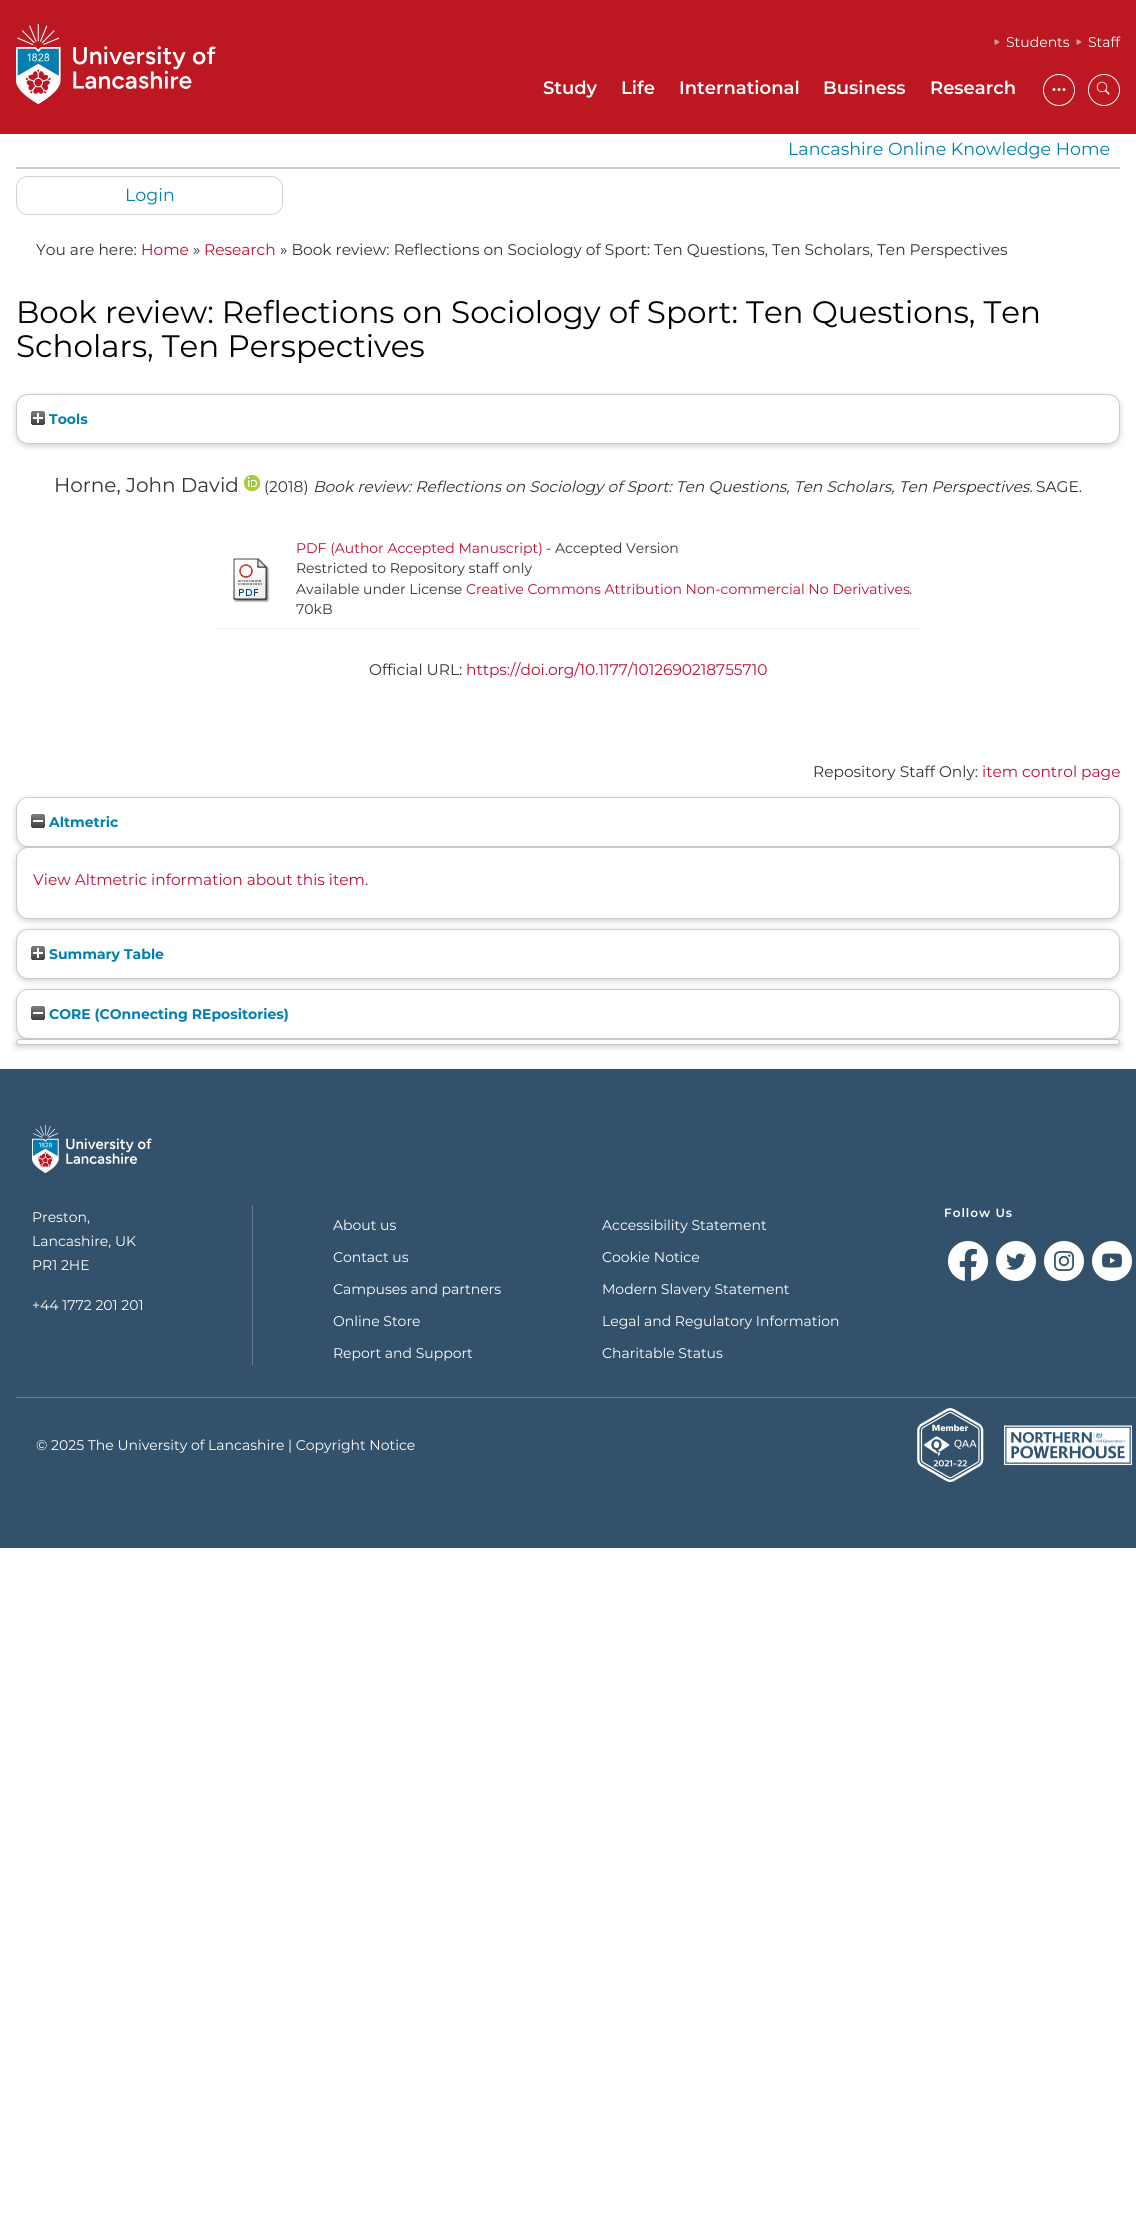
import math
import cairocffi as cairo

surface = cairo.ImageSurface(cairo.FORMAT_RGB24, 1136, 2219)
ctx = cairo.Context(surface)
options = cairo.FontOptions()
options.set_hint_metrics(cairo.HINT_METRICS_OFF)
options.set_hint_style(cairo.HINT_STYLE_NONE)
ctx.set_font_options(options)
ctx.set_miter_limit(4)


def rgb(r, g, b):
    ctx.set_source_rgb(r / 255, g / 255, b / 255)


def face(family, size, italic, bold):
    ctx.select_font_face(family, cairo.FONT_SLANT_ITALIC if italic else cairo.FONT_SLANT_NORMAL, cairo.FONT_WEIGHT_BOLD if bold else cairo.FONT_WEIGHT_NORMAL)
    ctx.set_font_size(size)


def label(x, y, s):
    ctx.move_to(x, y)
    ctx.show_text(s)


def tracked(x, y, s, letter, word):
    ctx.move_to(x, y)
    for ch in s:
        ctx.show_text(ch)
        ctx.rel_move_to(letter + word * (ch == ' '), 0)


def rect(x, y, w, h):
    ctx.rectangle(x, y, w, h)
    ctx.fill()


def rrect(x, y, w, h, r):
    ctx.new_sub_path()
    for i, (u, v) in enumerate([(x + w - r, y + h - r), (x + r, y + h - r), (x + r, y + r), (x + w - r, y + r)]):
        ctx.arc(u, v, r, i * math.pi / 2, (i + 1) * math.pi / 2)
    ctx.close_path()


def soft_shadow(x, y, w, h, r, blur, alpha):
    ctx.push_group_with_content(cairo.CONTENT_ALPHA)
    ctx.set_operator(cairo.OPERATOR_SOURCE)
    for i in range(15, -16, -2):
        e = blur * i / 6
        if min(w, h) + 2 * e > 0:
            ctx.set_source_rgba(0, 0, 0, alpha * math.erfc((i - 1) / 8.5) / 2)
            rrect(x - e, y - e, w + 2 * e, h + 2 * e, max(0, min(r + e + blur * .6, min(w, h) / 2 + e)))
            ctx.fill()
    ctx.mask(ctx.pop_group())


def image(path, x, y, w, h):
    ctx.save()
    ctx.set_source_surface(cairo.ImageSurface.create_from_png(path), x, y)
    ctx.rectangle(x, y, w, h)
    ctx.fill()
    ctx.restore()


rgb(255, 255, 255)
ctx.paint()
rgb(189, 23, 33)
rect(0, 0, 1136, 134)
image('image0.png', 16, 24, 200, 80)
image('image1.png', 994, 39, 6, 6)
face('Montserrat', 14, 0, 0)
rgb(255, 255, 255)
label(1006, 47, 'Students')
image('image1.png', 1076, 39, 6, 6)
label(1088, 47, 'Staff')
face('Montserrat SemiBold', 18, 0, 0)
label(543, 94, 'Study')
label(621, 94, 'Life')
label(679, 94, 'International')
label(823, 94, 'Business')
label(930, 94, 'Research')
ctx.new_path()
ctx.arc(1059, 90, 15.5, 0, 2 * math.pi)
ctx.set_line_width(1)
ctx.stroke()
image('image2.png', 1052, 88, 14, 3)
ctx.arc(1104, 90, 15.5, 0, 2 * math.pi)
ctx.stroke()
image('image3.png', 1096, 81, 14, 14)
face('Montserrat', 17.5, 0, 0)
rgb(0, 127, 176)
label(788, 155, 'Lancashire Online Knowledge Home')
rgb(204, 204, 204)
rect(16, 167, 1104, 2)
rrect(16.5, 176.5, 266, 38, 11.5)
rgb(211, 211, 211)
ctx.stroke()
rgb(0, 127, 176)
label(125, 201, 'Login')
face('Montserrat', 15.4, 0, 0)
rgb(51, 51, 51)
label(36, 255, 'You are here:')
rgb(190, 15, 52)
label(141, 255, 'Home')
rgb(51, 51, 51)
label(193, 255, '»')
rgb(190, 15, 52)
label(204, 255, 'Research')
rgb(51, 51, 51)
label(280, 255, '» Book review: Reflections on Sociology of Sport: Ten Questions, Ten Scholars, Ten Perspectives')
face('Montserrat', 31, 0, 0)
rgb(0, 0, 0)
label(16, 323, 'Book review: Reflections on Sociology of Sport: Ten Questions, Ten')
label(16, 357, 'Scholars, Ten Perspectives')
rgb(100, 100, 100)
soft_shadow(16, 396, 1104, 50, 12, 3, 0.3)
rgb(255, 255, 255)
rrect(16.5, 394.5, 1103, 49, 11.5)
ctx.fill_preserve()
rgb(204, 204, 204)
ctx.stroke()
image('image4.png', 31, 411, 14, 14)
face('Montserrat', 14, 0, 1)
rgb(0, 127, 176)
label(49, 424, 'Tools')
face('Montserrat', 20, 0, 0)
rgb(51, 51, 51)
label(54, 492, 'Horne, John David')
image('image5.png', 244, 475, 16, 16)
face('Montserrat', 15.4, 0, 0)
label(264, 492, '(2018)')
face('Montserrat', 15.4, 1, 0)
label(313, 492, 'Book review: Reflections on Sociology of Sport: Ten Questions, Ten Scholars, Ten Perspectives.')
face('Montserrat', 15.4, 0, 0)
label(1036, 492, 'SAGE.')
rgb(240, 240, 240)
rect(214, 628, 708, 1)
image('image6.png', 233, 558, 37, 45)
face('Montserrat', 14, 0, 0)
rgb(190, 15, 52)
label(296, 553, 'PDF (Author Accepted Manuscript)')
rgb(51, 51, 51)
label(546, 553, '- Accepted Version')
label(296, 573, 'Restricted to Repository staff only')
label(296, 594, 'Available under License')
rgb(190, 15, 52)
label(466, 594, 'Creative Commons Attribution Non-commercial No Derivatives')
rgb(51, 51, 51)
label(909, 594, '.')
label(296, 614, '70kB')
face('Montserrat', 15.4, 0, 0)
label(369, 675, 'Official URL:')
rgb(190, 15, 52)
label(466, 675, 'https://doi.org/10.1177/1012690218755710')
rgb(51, 51, 51)
label(813, 777, 'Repository Staff Only:')
rgb(190, 15, 52)
label(982, 777, 'item control page')
rgb(100, 100, 100)
soft_shadow(16, 799, 1104, 50, 12, 3, 0.3)
rgb(255, 255, 255)
rrect(16.5, 797.5, 1103, 49, 11.5)
ctx.fill_preserve()
rgb(204, 204, 204)
ctx.stroke()
image('image7.png', 31, 814, 14, 14)
face('Montserrat', 14, 0, 1)
rgb(0, 127, 176)
label(49, 827, 'Altmetric')
rgb(100, 100, 100)
soft_shadow(16, 849, 1104, 72, 12, 3, 0.3)
rgb(255, 255, 255)
rrect(16.5, 847.5, 1103, 71, 11.5)
ctx.fill_preserve()
rgb(200, 200, 200)
ctx.stroke()
face('Montserrat', 15.4, 0, 0)
rgb(190, 15, 52)
label(33, 885, 'View Altmetric information about this item')
rgb(51, 51, 51)
label(365, 885, '.')
rgb(100, 100, 100)
soft_shadow(16, 931, 1104, 50, 12, 3, 0.3)
rgb(255, 255, 255)
rrect(16.5, 929.5, 1103, 49, 11.5)
ctx.fill_preserve()
rgb(204, 204, 204)
ctx.stroke()
image('image4.png', 31, 946, 14, 14)
face('Montserrat', 14, 0, 1)
rgb(0, 127, 176)
label(49, 959, 'Summary Table')
rgb(100, 100, 100)
soft_shadow(16, 991, 1104, 50, 12, 3, 0.3)
rgb(255, 255, 255)
rrect(16.5, 989.5, 1103, 49, 11.5)
ctx.fill_preserve()
rgb(204, 204, 204)
ctx.stroke()
image('image7.png', 31, 1006, 14, 14)
rgb(0, 127, 176)
label(49, 1019, 'CORE (COnnecting REpositories)')
rgb(100, 100, 100)
soft_shadow(16, 1041, 1104, 6, 3, 3, 0.3)
rgb(255, 255, 255)
rrect(16.5, 1039.5, 1103, 5, 2.5)
ctx.fill_preserve()
rgb(200, 200, 200)
ctx.stroke()
rgb(52, 81, 108)
rect(0, 1069, 1136, 479)
image('image8.png', 32, 1125, 120, 48)
rgb(103, 125, 145)
rect(16, 1397, 1120, 1)
rect(252, 1205, 1, 160)
face('Montserrat', 14, 0, 0)
rgb(255, 255, 255)
label(32, 1222, 'Preston,')
label(32, 1246, 'Lancashire, UK')
label(32, 1270, 'PR1 2HE')
label(32, 1310, '+44 1772 201 201')
label(333, 1230, 'About us')
label(602, 1230, 'Accessibility Statement')
label(333, 1262, 'Contact us')
label(602, 1262, 'Cookie Notice')
label(333, 1294, 'Campuses and partners')
label(602, 1294, 'Modern Slavery Statement')
label(333, 1326, 'Online Store')
label(602, 1326, 'Legal and Regulatory Information')
label(333, 1358, 'Report and Support')
label(602, 1358, 'Charitable Status')
face('Montserrat SemiBold', 12, 0, 0)
tracked(944, 1217, 'Follow Us', 1, 0)
image('image9.png', 948, 1241, 40, 40)
ctx.arc(1016, 1261, 20, 0, 2 * math.pi)
ctx.fill()
image('image10.png', 1006, 1253, 20, 17)
ctx.arc(1064, 1261, 20, 0, 2 * math.pi)
ctx.fill()
image('image11.png', 1054, 1251, 20, 20)
ctx.arc(1112, 1261, 20, 0, 2 * math.pi)
ctx.fill()
image('image12.png', 1102, 1253, 20, 15)
face('Montserrat', 14, 0, 0)
label(36, 1450, '© 2025 The University of Lancashire | Copyright Notice')
image('image13.png', 917, 1408, 67, 74)
image('image14.png', 1004, 1425, 128, 40)
surface.write_to_png('render.png')
